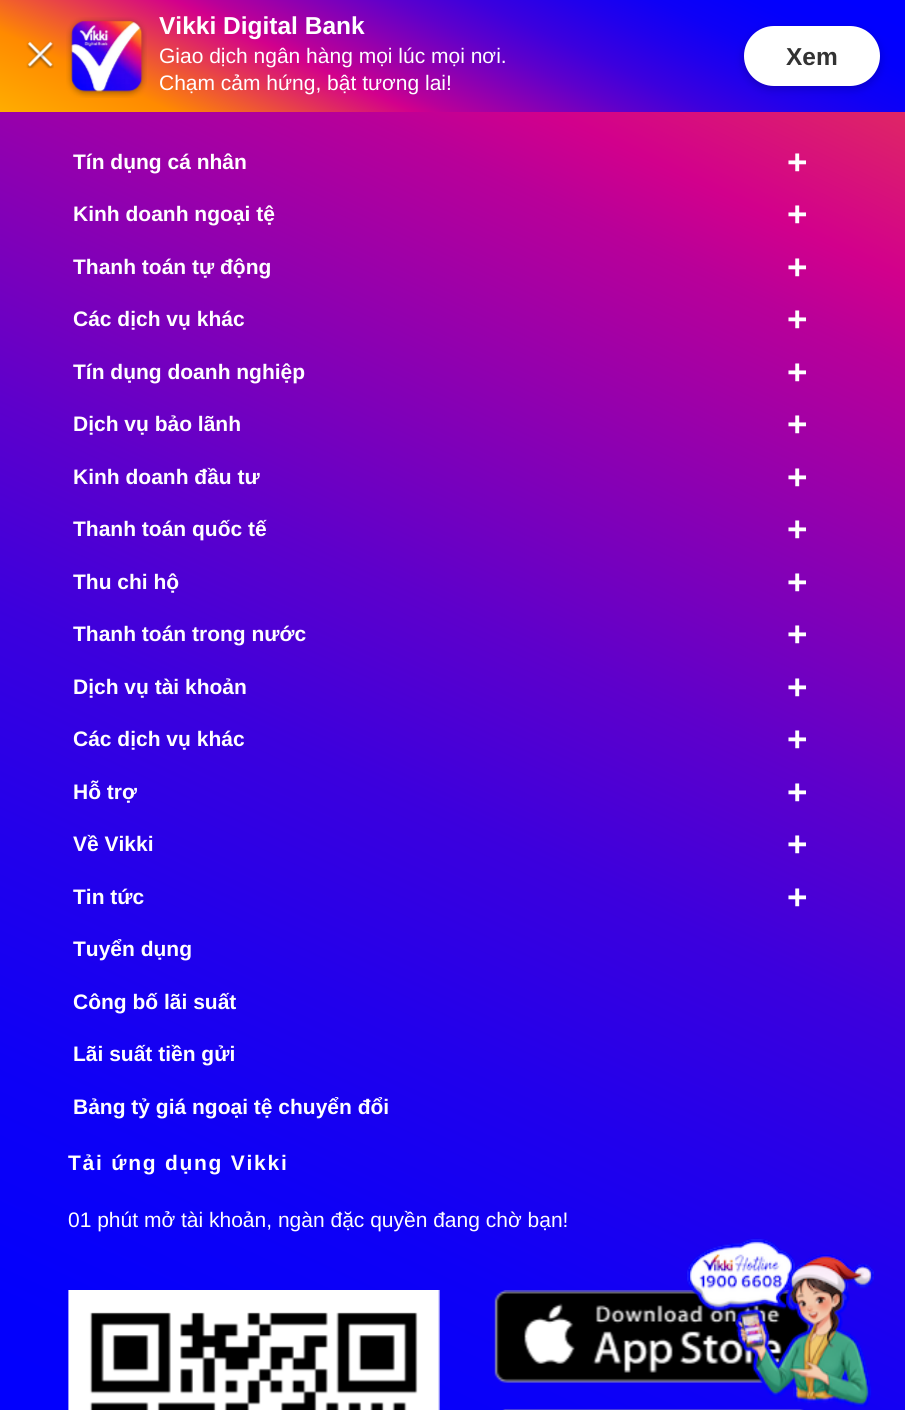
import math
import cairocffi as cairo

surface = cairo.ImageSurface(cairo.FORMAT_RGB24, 905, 1410)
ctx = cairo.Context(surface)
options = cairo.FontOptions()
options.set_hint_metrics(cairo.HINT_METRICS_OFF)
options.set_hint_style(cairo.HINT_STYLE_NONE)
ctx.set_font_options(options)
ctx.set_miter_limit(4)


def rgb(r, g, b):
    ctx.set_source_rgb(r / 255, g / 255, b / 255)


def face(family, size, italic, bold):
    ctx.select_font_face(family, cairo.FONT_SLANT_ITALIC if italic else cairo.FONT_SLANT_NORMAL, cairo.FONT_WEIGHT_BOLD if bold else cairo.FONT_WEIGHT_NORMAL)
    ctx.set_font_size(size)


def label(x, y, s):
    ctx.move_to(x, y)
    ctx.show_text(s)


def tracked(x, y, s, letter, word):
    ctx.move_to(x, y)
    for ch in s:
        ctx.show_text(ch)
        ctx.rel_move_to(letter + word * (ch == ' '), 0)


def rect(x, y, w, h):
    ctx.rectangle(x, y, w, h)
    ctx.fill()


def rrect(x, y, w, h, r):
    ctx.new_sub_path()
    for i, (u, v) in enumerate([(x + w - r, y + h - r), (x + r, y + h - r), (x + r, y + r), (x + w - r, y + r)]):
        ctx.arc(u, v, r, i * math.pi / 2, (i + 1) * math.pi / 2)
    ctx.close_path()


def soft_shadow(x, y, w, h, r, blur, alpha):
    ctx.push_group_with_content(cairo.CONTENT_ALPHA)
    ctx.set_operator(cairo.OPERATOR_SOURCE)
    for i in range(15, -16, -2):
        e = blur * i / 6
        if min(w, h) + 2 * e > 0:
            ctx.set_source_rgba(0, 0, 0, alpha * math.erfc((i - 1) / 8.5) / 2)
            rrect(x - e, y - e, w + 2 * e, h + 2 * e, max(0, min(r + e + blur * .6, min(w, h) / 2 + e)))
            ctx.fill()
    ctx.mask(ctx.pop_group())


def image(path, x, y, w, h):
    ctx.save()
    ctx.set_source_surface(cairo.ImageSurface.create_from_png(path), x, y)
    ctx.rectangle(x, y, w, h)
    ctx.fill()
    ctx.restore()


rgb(255, 255, 255)
ctx.paint()
gradient = cairo.LinearGradient(556, -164, 341, 297)
gradient.add_color_stop_rgba(0.04, 0, 0, 1, 1)
gradient.add_color_stop_rgba(0.13, 0.012, 0, 0.988, 1)
gradient.add_color_stop_rgba(0.21, 0.055, 0, 0.965, 1)
gradient.add_color_stop_rgba(0.28, 0.129, 0, 0.925, 1)
gradient.add_color_stop_rgba(0.36, 0.235, 0, 0.867, 1)
gradient.add_color_stop_rgba(0.43, 0.369, 0, 0.796, 1)
gradient.add_color_stop_rgba(0.5, 0.533, 0, 0.706, 1)
gradient.add_color_stop_rgba(0.58, 0.725, 0, 0.6, 1)
gradient.add_color_stop_rgba(0.61, 0.824, 0, 0.549, 1)
gradient.add_color_stop_rgba(0.81, 1, 0.541, 0, 1)
gradient.add_color_stop_rgba(1, 1, 0.722, 0, 1)
ctx.set_source(gradient)
rect(0, 0, 905, 112)
image('image0.png', 26, 41, 28, 28)
image('image1.png', 66, 17, 81, 81)
face('Liberation Sans', 24.5, 0, 1)
rgb(255, 255, 255)
label(159, 34, 'Vikki Digital Bank')
face('Liberation Sans', 21, 0, 0)
label(159, 63, 'Giao dịch ngân hàng mọi lúc mọi nơi.')
label(159, 90, 'Chạm cảm hứng, bật tương lai!')
rgb(0, 0, 0)
soft_shadow(744, 30, 136, 59, 29.5, 4.5, 0.2)
rgb(255, 255, 255)
rrect(744, 26, 136, 60, 30)
ctx.fill()
face('Liberation Sans', 24.5, 0, 1)
rgb(51, 51, 51)
label(786, 65, 'Xem')
gradient = cairo.LinearGradient(-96, 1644, 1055, -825)
gradient.add_color_stop_rgba(0.04, 0, 0, 1, 1)
gradient.add_color_stop_rgba(0.13, 0.012, 0, 0.988, 1)
gradient.add_color_stop_rgba(0.21, 0.055, 0, 0.965, 1)
gradient.add_color_stop_rgba(0.28, 0.129, 0, 0.925, 1)
gradient.add_color_stop_rgba(0.36, 0.235, 0, 0.867, 1)
gradient.add_color_stop_rgba(0.43, 0.369, 0, 0.796, 1)
gradient.add_color_stop_rgba(0.5, 0.533, 0, 0.706, 1)
gradient.add_color_stop_rgba(0.58, 0.725, 0, 0.6, 1)
gradient.add_color_stop_rgba(0.61, 0.824, 0, 0.549, 1)
gradient.add_color_stop_rgba(0.81, 1, 0.541, 0, 1)
gradient.add_color_stop_rgba(1, 1, 0.722, 0, 1)
ctx.set_source(gradient)
rect(0, 112, 905, 1298)
face('Liberation Sans', 21, 0, 1)
rgb(255, 255, 255)
label(73, 169, 'Tín dụng cá nhân')
face('Liberation Sans', 35, 0, 1)
label(787, 174, '+')
face('Liberation Sans', 21, 0, 1)
label(73, 221, 'Kinh doanh ngoại tệ')
face('Liberation Sans', 35, 0, 1)
label(787, 226, '+')
face('Liberation Sans', 21, 0, 1)
label(73, 274, 'Thanh toán tự động')
face('Liberation Sans', 35, 0, 1)
label(787, 279, '+')
face('Liberation Sans', 21, 0, 1)
label(73, 326, 'Các dịch vụ khác')
face('Liberation Sans', 35, 0, 1)
label(787, 331, '+')
face('Liberation Sans', 21, 0, 1)
label(73, 379, 'Tín dụng doanh nghiệp')
face('Liberation Sans', 35, 0, 1)
label(787, 384, '+')
face('Liberation Sans', 21, 0, 1)
label(73, 431, 'Dịch vụ bảo lãnh')
face('Liberation Sans', 35, 0, 1)
label(787, 436, '+')
face('Liberation Sans', 21, 0, 1)
label(73, 484, 'Kinh doanh đầu tư')
face('Liberation Sans', 35, 0, 1)
label(787, 489, '+')
face('Liberation Sans', 21, 0, 1)
label(73, 536, 'Thanh toán quốc tế')
face('Liberation Sans', 35, 0, 1)
label(787, 541, '+')
face('Liberation Sans', 21, 0, 1)
label(73, 589, 'Thu chi hộ')
face('Liberation Sans', 35, 0, 1)
label(787, 594, '+')
face('Liberation Sans', 21, 0, 1)
label(73, 641, 'Thanh toán trong nước')
face('Liberation Sans', 35, 0, 1)
label(787, 646, '+')
face('Liberation Sans', 21, 0, 1)
label(73, 694, 'Dịch vụ tài khoản')
face('Liberation Sans', 35, 0, 1)
label(787, 699, '+')
face('Liberation Sans', 21, 0, 1)
label(73, 746, 'Các dịch vụ khác')
face('Liberation Sans', 35, 0, 1)
label(787, 751, '+')
face('Liberation Sans', 21, 0, 1)
label(73, 799, 'Hỗ trợ')
face('Liberation Sans', 35, 0, 1)
label(787, 804, '+')
face('Liberation Sans', 21, 0, 1)
label(73, 851, 'Về Vikki')
face('Liberation Sans', 35, 0, 1)
label(787, 856, '+')
face('Liberation Sans', 21, 0, 1)
label(73, 904, 'Tin tức')
face('Liberation Sans', 35, 0, 1)
label(787, 909, '+')
face('Liberation Sans', 21, 0, 1)
label(73, 956, 'Tuyển dụng')
label(73, 1009, 'Công bố lãi suất')
label(73, 1061, 'Lãi suất tiền gửi')
label(73, 1114, 'Bảng tỷ giá ngoại tệ chuyển đổi')
tracked(68, 1170, 'Tải ứng dụng Vikki', 1.75, 0)
face('Liberation Sans', 21, 0, 0)
label(68, 1227, '01 phút mở tài khoản, ngàn đặc quyền đang chờ bạn!')
image('image2.png', 68, 1290, 372, 120)
image('image3.png', 494, 1290, 317, 93)
image('image4.png', 502, 1409, 302, 1)
image('image5.png', 686, 1238, 188, 170)
surface.write_to_png('render.png')
